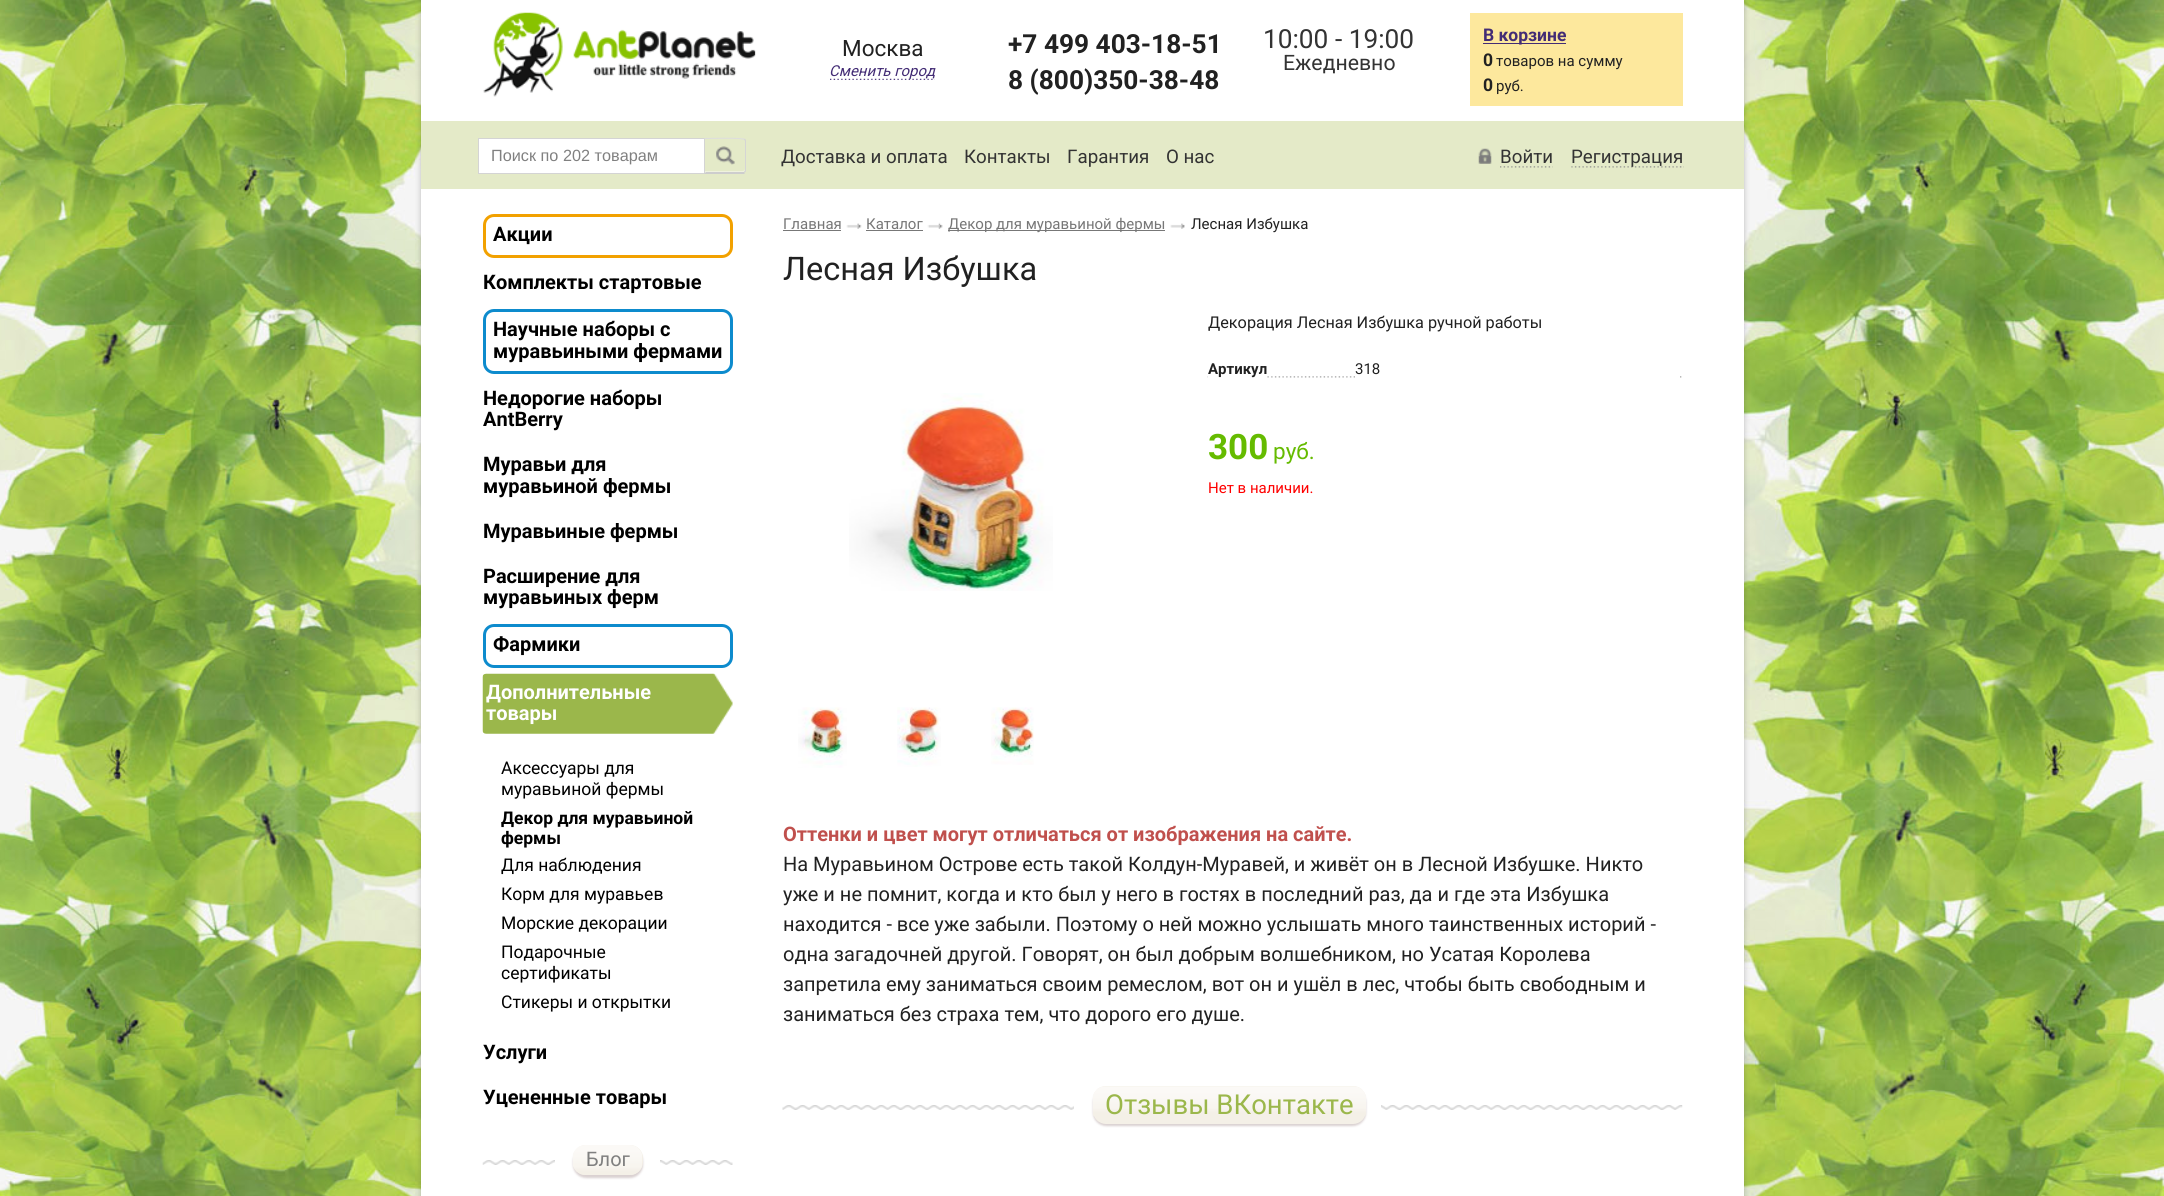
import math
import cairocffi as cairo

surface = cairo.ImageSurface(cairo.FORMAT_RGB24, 2164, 1196)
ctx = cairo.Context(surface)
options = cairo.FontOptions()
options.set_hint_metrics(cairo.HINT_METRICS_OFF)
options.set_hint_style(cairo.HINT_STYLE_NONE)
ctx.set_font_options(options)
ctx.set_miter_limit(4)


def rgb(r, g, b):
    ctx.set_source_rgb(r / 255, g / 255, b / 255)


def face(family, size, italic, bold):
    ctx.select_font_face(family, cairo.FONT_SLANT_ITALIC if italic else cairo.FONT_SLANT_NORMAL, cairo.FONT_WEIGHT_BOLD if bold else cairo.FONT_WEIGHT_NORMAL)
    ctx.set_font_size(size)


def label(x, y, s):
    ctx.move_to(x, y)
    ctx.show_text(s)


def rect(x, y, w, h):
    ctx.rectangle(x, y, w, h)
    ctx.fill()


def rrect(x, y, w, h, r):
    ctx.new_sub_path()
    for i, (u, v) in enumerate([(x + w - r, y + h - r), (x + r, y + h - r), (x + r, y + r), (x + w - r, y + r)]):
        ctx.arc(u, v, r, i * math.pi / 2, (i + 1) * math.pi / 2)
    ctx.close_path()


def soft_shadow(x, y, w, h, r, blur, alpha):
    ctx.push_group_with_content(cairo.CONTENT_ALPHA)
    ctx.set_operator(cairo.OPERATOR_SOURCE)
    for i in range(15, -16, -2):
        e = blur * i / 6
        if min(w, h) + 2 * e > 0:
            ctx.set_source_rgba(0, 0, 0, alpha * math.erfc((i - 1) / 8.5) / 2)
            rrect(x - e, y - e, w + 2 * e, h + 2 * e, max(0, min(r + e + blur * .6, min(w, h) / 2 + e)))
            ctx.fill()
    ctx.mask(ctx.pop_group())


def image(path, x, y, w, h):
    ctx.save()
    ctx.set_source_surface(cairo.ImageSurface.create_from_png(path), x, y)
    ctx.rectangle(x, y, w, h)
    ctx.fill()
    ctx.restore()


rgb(255, 255, 255)
ctx.paint()
image('image0.png', 0, 0, 2164, 1196)
rgb(50, 50, 50)
soft_shadow(421, 0, 1323, 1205, 0, 3, 0.3)
rgb(255, 255, 255)
rect(421, 0, 1323, 1196)
image('image1.png', 483, 12, 273, 85)
face('Roboto', 22.5, 0, 0)
rgb(33, 33, 33)
label(842, 56, 'Москва')
image('image2.png', 830, 78, 105, 2)
face('Roboto', 15, 1, 0)
rgb(67, 44, 117)
label(829, 76, 'Сменить город')
face('Roboto', 26.25, 0, 1)
rgb(33, 33, 33)
label(1008, 53, '+7 499 403-18-51')
label(1008, 89, '8 (800)350-38-48')
face('Roboto', 26.25, 0, 0)
rgb(51, 51, 51)
label(1263, 48, '10:00 - 19:00')
face('Roboto', 21.25, 0, 0)
label(1283, 70, 'Ежедневно')
rgb(253, 232, 157)
rect(1470, 13, 213, 93)
rgb(67, 44, 117)
rect(1483, 43, 83, 1)
face('Roboto', 17.5, 0, 1)
label(1483, 41, 'В корзине')
rgb(33, 33, 33)
label(1483, 66, '0')
face('Roboto', 15, 0, 0)
label(1496, 66, 'товаров на сумму')
face('Roboto', 17.5, 0, 1)
label(1483, 91, '0')
face('Roboto', 15, 0, 0)
label(1496, 91, 'руб.')
rgb(228, 234, 200)
rect(421, 121, 1323, 68)
rgb(255, 255, 255)
ctx.rectangle(478.5, 138.5, 226, 35)
ctx.fill_preserve()
rgb(212, 212, 212)
ctx.set_line_width(1)
ctx.stroke()
face('Liberation Sans', 16.25, 0, 0)
rgb(128, 128, 128)
label(491, 161, 'Поиск по 202 товарам')
image('image3.png', 716, 146, 19, 19)
rgb(239, 242, 222)
ctx.new_path()
ctx.move_to(705, 171)
ctx.line_to(705, 173)
ctx.line_to(742, 173)
ctx.curve_to(744, 173, 745, 172, 745, 170)
ctx.line_to(745, 169)
ctx.curve_to(745, 170, 744, 171, 742, 171)
ctx.close_path()
ctx.fill()
rgb(221, 221, 221)
ctx.new_path()
ctx.move_to(745, 139)
ctx.curve_to(743, 137, 710, 138, 704, 138)
ctx.line_to(705, 139)
ctx.curve_to(710, 139, 742, 138, 744, 140)
ctx.close_path()
ctx.fill()
rgb(213, 213, 213)
ctx.new_path()
ctx.move_to(745, 138.5)
ctx.curve_to(745.5, 139, 746, 140, 746, 141)
ctx.line_to(746, 170)
ctx.curve_to(746, 171, 746, 172, 745, 172.5)
ctx.line_to(744, 171.5)
ctx.line_to(745, 170.5)
ctx.line_to(745, 141)
ctx.line_to(744, 139.5)
ctx.close_path()
ctx.fill()
rgb(205, 205, 205)
ctx.new_path()
ctx.move_to(704, 174)
ctx.line_to(706, 172)
ctx.line_to(742, 172)
ctx.line_to(744, 172)
ctx.line_to(745, 173)
ctx.line_to(744, 174)
ctx.close_path()
ctx.fill()
face('Roboto', 18.75, 0, 0)
rgb(51, 51, 51)
label(781, 163, 'Доставка и оплата')
label(964, 163, 'Контакты')
label(1067, 163, 'Гарантия')
label(1166, 163, 'О нас')
image('image4.png', 1478, 148, 14, 16)
label(1500, 163, 'Войти')
image('image6.png', 1571, 166, 113, 2)
label(1571, 163, 'Регистрация')
image('image5.png', 1500, 166, 53, 2)
rrect(484.5, 215.5, 247, 41, 9.5)
rgb(242, 161, 0)
ctx.set_line_width(3)
ctx.stroke()
face('Roboto', 20, 0, 1)
rgb(0, 0, 0)
label(493, 241, 'Акции')
label(483, 289, 'Комплекты стартовые')
rrect(484.5, 310.5, 247, 62, 9.5)
rgb(13, 139, 205)
ctx.stroke()
rgb(0, 0, 0)
label(493, 336, 'Научные наборы с')
label(493, 358, 'муравьиными фермами')
label(483, 405, 'Недорогие наборы')
label(483, 426, 'AntBerry')
label(483, 471, 'Муравьи для')
label(483, 493, 'муравьиной фермы')
label(483, 538, 'Муравьиные фермы')
label(483, 583, 'Расширение для')
label(483, 604, 'муравьиных ферм')
rrect(484.5, 625.5, 247, 41, 9.5)
rgb(13, 139, 205)
ctx.stroke()
rgb(0, 0, 0)
label(493, 651, 'Фармики')
image('image7.png', 482, 673, 251, 61)
rgb(255, 255, 255)
label(486, 699, 'Дополнительные')
label(486, 720, 'товары')
face('Roboto', 17.5, 0, 0)
rgb(0, 0, 0)
label(501, 774, 'Аксессуары для')
label(501, 795, 'муравьиной фермы')
face('Roboto', 17.5, 0, 1)
label(501, 824, 'Декор для муравьиной')
label(501, 844, 'фермы')
face('Roboto', 17.5, 0, 0)
label(501, 871, 'Для наблюдения')
label(501, 900, 'Корм для муравьев')
label(501, 929, 'Морские декорации')
label(501, 958, 'Подарочные')
label(501, 979, 'сертификаты')
label(501, 1008, 'Стикеры и открытки')
face('Roboto', 20, 0, 1)
label(483, 1059, 'Услуги')
label(483, 1104, 'Уцененные товары')
image('image8.png', 482, 1160, 251, 5)
rgb(255, 255, 255)
rect(555, 1160, 105, 5)
rgb(214, 204, 204)
soft_shadow(573, 1148, 70, 30, 13, 1, 0.9)
rgb(244, 240, 231)
rrect(573, 1145, 70, 30, 13)
ctx.fill()
image('image9.png', 573, 1145, 69, 30)
face('Roboto', 20, 0, 0)
rgb(128, 128, 128)
label(586, 1166, 'Блог')
face('Roboto', 15, 0, 0)
rgb(119, 119, 119)
label(783, 229, 'Главная')
rect(783, 230, 58, 1)
image('image10.png', 846, 223, 16, 6)
label(866, 229, 'Каталог')
rect(866, 230, 57, 1)
image('image11.png', 927, 222, 16, 7)
rect(948, 230, 217, 1)
label(948, 229, 'Декор для муравьиной фермы')
image('image12.png', 1170, 223, 15, 6)
rgb(33, 33, 33)
label(1191, 229, 'Лесная Избушка')
face('Roboto', 32.5, 0, 0)
label(783, 280, 'Лесная Избушка')
image('image13.png', 849, 393, 204, 198)
image('image14.png', 798, 707, 49, 61)
image('image15.png', 897, 707, 44, 60)
image('image16.png', 991, 707, 43, 58)
face('Roboto', 16.25, 0, 0)
label(1208, 328, 'Декорация Лесная Избушка ручной работы')
image('image17.png', 1207, 376, 475, 2)
rgb(255, 255, 255)
rect(1208, 376, 58, 2)
face('Roboto', 15, 0, 1)
rgb(33, 33, 33)
label(1208, 374, 'Артикул')
rgb(255, 255, 255)
rect(1355, 376, 325, 2)
face('Roboto', 15, 0, 0)
rgb(33, 33, 33)
label(1355, 374, '318')
face('Roboto', 35, 0, 1)
rgb(101, 187, 0)
label(1208, 459, '300')
face('Roboto', 22.5, 0, 0)
label(1273, 459, 'руб.')
face('Roboto', 15, 0, 0)
rgb(255, 0, 0)
label(1208, 493, 'Нет в наличии.')
face('Roboto', 20, 0, 1)
rgb(192, 80, 77)
label(783, 841, 'Оттенки и цвет могут отличаться от изображения на сайте.')
face('Roboto', 20, 0, 0)
rgb(33, 33, 33)
label(783, 871, 'На Муравьином Острове есть такой Колдун-Муравей, и живёт он в Лесной Избушке. Никто')
label(783, 901, 'уже и не помнит, когда и кто был у него в гостях в последний раз, да и где эта Избушка')
label(783, 931, 'находится - все уже забыли. Поэтому о ней можно услышать много таинственных историй -')
label(783, 961, 'одна загадочней другой. Говорят, он был добрым волшебником, но Усатая Королева')
label(783, 991, 'запретила ему заниматься своим ремеслом, вот он и ушёл в лес, чтобы быть свободным и')
label(783, 1021, 'заниматься без страха тем, что дорого его душе.')
image('image18.png', 782, 1105, 901, 5)
rgb(255, 255, 255)
rect(1074, 1105, 307, 5)
rgb(214, 204, 204)
soft_shadow(1093, 1089, 273, 37, 13, 1, 0.9)
rgb(244, 240, 231)
rrect(1093, 1086, 273, 38, 13)
ctx.fill()
image('image19.png', 1093, 1086, 273, 30)
face('Roboto', 27.5, 0, 0)
rgb(155, 183, 75)
label(1105, 1114, 'Отзывы ВКонтакте')
surface.write_to_png('render.png')
